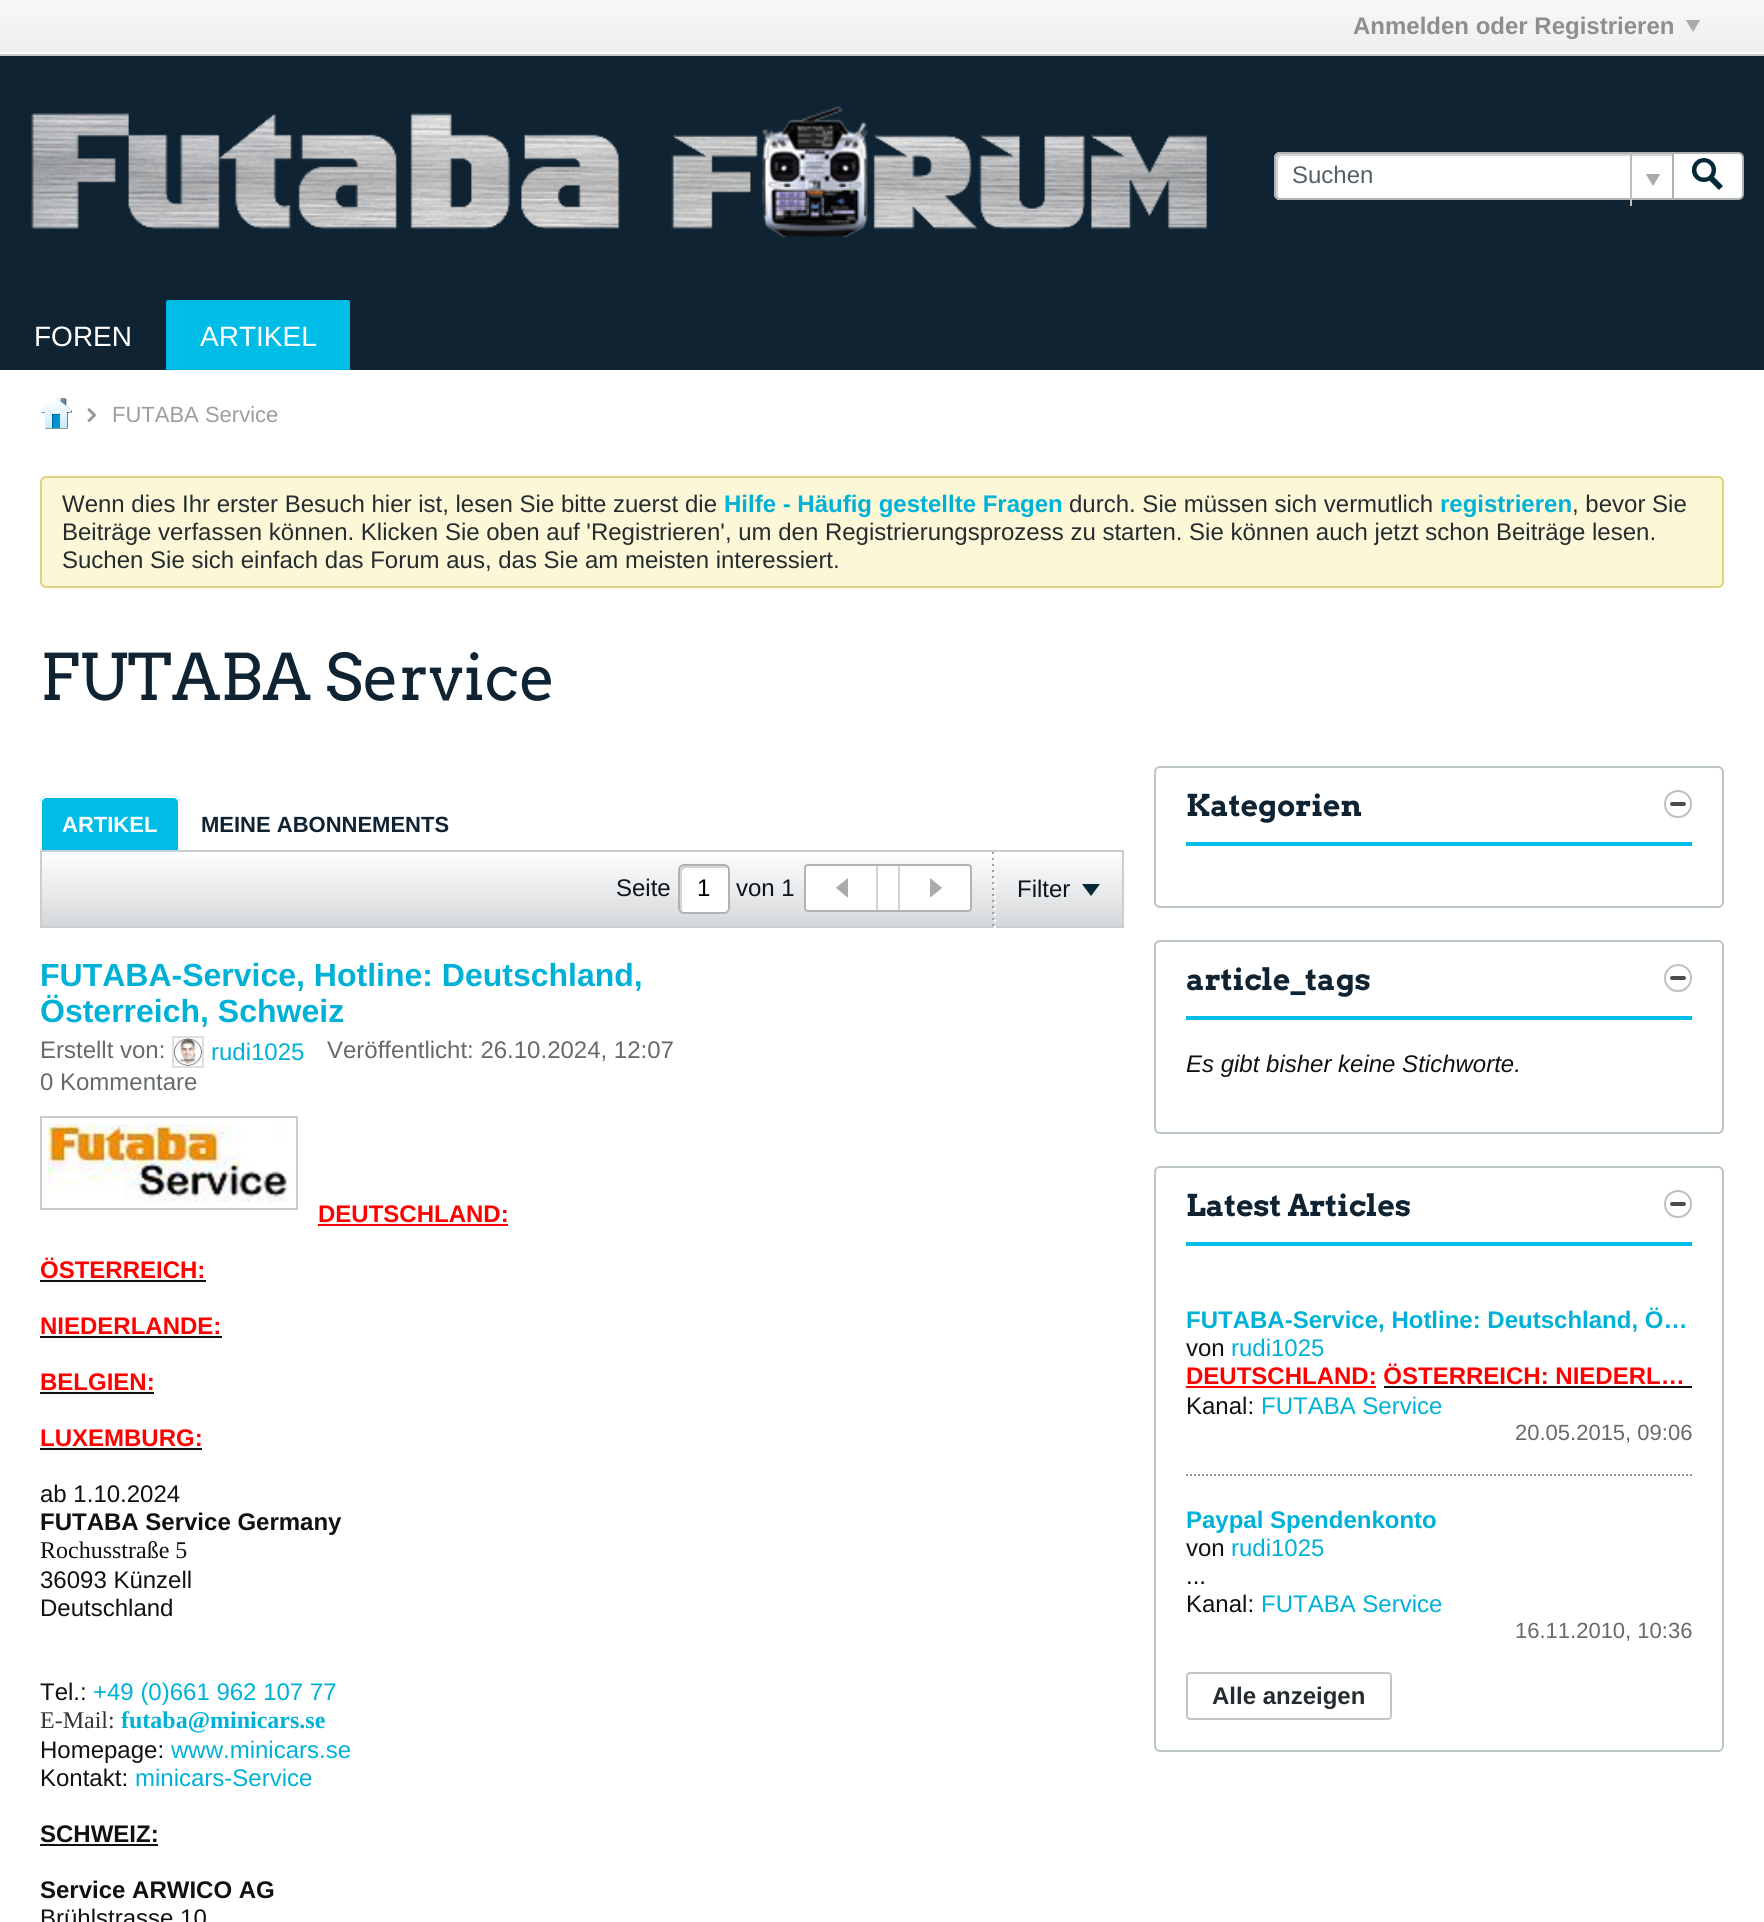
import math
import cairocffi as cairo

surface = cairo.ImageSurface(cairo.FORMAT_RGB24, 1764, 1922)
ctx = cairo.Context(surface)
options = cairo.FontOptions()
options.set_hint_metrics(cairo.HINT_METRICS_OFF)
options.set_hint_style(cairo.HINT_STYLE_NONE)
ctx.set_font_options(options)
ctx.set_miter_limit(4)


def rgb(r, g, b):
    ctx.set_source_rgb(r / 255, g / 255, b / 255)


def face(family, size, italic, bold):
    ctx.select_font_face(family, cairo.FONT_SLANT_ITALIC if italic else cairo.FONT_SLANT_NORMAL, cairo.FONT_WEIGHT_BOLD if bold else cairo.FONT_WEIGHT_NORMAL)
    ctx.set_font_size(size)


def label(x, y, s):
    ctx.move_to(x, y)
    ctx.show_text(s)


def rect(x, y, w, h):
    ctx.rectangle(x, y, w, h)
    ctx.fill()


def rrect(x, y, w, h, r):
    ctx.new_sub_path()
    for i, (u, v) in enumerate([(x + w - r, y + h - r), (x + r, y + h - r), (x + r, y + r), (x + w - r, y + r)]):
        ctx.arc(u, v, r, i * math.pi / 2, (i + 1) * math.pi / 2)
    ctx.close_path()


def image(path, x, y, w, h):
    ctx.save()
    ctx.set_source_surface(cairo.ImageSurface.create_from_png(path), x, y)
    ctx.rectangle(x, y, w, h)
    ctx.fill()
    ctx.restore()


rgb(255, 255, 255)
ctx.paint()
gradient = cairo.LinearGradient(882, 0, 882, 56)
gradient.add_color_stop_rgba(0, 0.973, 0.973, 0.973, 1)
gradient.add_color_stop_rgba(1, 0.937, 0.929, 0.933, 1)
ctx.set_source(gradient)
rect(0, 0, 1764, 52)
face('Liberation Sans', 24, 0, 1)
rgb(142, 142, 142)
label(1353, 34, 'Anmelden oder Registrieren')
image('image0.png', 1686, 20, 14, 12)
rgb(250, 250, 250)
rect(0, 52, 1764, 2)
rgb(199, 200, 201)
rect(0, 54, 1764, 2)
rgb(15, 35, 50)
rect(0, 56, 1764, 314)
image('image1.png', 31, 106, 1177, 132)
rgb(255, 255, 255)
ctx.new_path()
ctx.move_to(1280, 152)
ctx.line_to(1672, 152)
ctx.line_to(1672, 200)
ctx.line_to(1280, 200)
ctx.curve_to(1276.5, 200, 1274, 197.5, 1274, 194)
ctx.line_to(1274, 158)
ctx.curve_to(1274, 154.5, 1276.5, 152, 1280, 152)
ctx.close_path()
ctx.fill()
rgb(213, 213, 213)
ctx.new_path()
ctx.move_to(1282, 156)
ctx.line_to(1672, 156)
ctx.line_to(1672, 154)
ctx.line_to(1280, 154)
ctx.curve_to(1278, 154, 1276, 156, 1276, 158)
ctx.line_to(1276, 194)
ctx.curve_to(1276, 196, 1277, 197, 1278, 198)
ctx.line_to(1278, 196)
ctx.line_to(1278, 160)
ctx.curve_to(1278, 158, 1280, 156, 1282, 156)
ctx.close_path()
ctx.fill()
rgb(174, 179, 182)
ctx.set_fill_rule(cairo.FILL_RULE_EVEN_ODD)
ctx.new_path()
ctx.move_to(1280, 152)
ctx.line_to(1672, 152)
ctx.line_to(1672, 200)
ctx.line_to(1280, 200)
ctx.curve_to(1277, 200, 1274, 197, 1274, 194)
ctx.line_to(1274, 158)
ctx.curve_to(1274, 155, 1277, 152, 1280, 152)
ctx.close_path()
ctx.move_to(1280, 154)
ctx.line_to(1672, 154)
ctx.line_to(1672, 198)
ctx.line_to(1280, 198)
ctx.curve_to(1278, 198, 1276, 196, 1276, 194)
ctx.line_to(1276, 158)
ctx.curve_to(1276, 156, 1278, 154, 1280, 154)
ctx.close_path()
ctx.fill()
face('Liberation Sans', 24, 0, 0)
rgb(85, 96, 101)
label(1292, 183, 'Suchen')
rgb(189, 189, 189)
rect(1630, 152, 2, 54)
image('image2.png', 1646, 174, 14, 12)
rgb(255, 255, 255)
ctx.new_path()
ctx.move_to(1673, 153)
ctx.line_to(1738, 153)
ctx.curve_to(1741, 153, 1743, 155, 1743, 158)
ctx.line_to(1743, 194)
ctx.curve_to(1743, 197, 1741, 199, 1738, 199)
ctx.line_to(1673, 199)
ctx.close_path()
ctx.fill_preserve()
rgb(174, 179, 182)
ctx.stroke()
image('image3.png', 1692, 158, 31, 32)
face('Liberation Sans', 28, 0, 0)
rgb(255, 255, 255)
label(34, 346, 'FOREN')
rgb(0, 189, 232)
ctx.new_path()
ctx.move_to(168, 300)
ctx.line_to(348, 300)
ctx.curve_to(349, 300, 350, 301, 350, 302)
ctx.line_to(350, 370)
ctx.line_to(166, 370)
ctx.line_to(166, 302)
ctx.curve_to(166, 301, 167, 300, 168, 300)
ctx.close_path()
ctx.fill()
rgb(255, 255, 255)
label(200, 346, 'ARTIKEL')
image('image4.png', 40, 398, 32, 31)
image('image5.png', 87, 408, 9, 14)
face('Liberation Sans', 22, 0, 0)
rgb(158, 157, 157)
label(112, 422, 'FUTABA Service')
rgb(252, 247, 215)
rrect(41, 477, 1682, 110, 5)
ctx.fill_preserve()
rgb(225, 212, 126)
ctx.stroke()
face('Liberation Sans', 24, 0, 0)
rgb(37, 44, 47)
label(62, 512, 'Wenn dies Ihr erster Besuch hier ist, lesen Sie bitte zuerst die')
face('Liberation Sans', 24, 0, 1)
rgb(0, 177, 215)
label(724, 512, 'Hilfe - Häufig gestellte Fragen')
face('Liberation Sans', 24, 0, 0)
rgb(37, 44, 47)
label(1069, 512, 'durch. Sie müssen sich vermutlich')
face('Liberation Sans', 24, 0, 1)
rgb(0, 177, 215)
label(1440, 512, 'registrieren')
face('Liberation Sans', 24, 0, 0)
rgb(37, 44, 47)
label(1572, 512, ', bevor Sie')
label(62, 540, 'Beiträge verfassen können. Klicken Sie oben auf \'Registrieren\', um den Registrierungsprozess zu starten. Sie können auch jetzt schon Beiträge lesen.')
label(62, 568, 'Suchen Sie sich einfach das Forum aus, das Sie am meisten interessiert.')
face('Arvo', 64, 0, 0)
rgb(15, 35, 50)
label(40, 700, 'FUTABA Service')
rgb(0, 189, 232)
ctx.new_path()
ctx.move_to(46, 796)
ctx.line_to(174, 796)
ctx.curve_to(177.5, 796, 180, 798.5, 180, 802)
ctx.line_to(180, 850)
ctx.line_to(40, 850)
ctx.line_to(40, 802)
ctx.curve_to(40, 798.5, 42.5, 796, 46, 796)
ctx.close_path()
ctx.fill()
rgb(255, 255, 255)
ctx.new_path()
ctx.move_to(46, 796)
ctx.line_to(174, 796)
ctx.curve_to(177, 796, 180, 799, 180, 802)
ctx.line_to(180, 850)
ctx.line_to(40, 850)
ctx.line_to(40, 802)
ctx.curve_to(40, 799, 43, 796, 46, 796)
ctx.close_path()
ctx.move_to(46, 798)
ctx.line_to(174, 798)
ctx.curve_to(176, 798, 178, 800, 178, 802)
ctx.line_to(178, 850)
ctx.line_to(42, 850)
ctx.line_to(42, 802)
ctx.curve_to(42, 800, 44, 798, 46, 798)
ctx.close_path()
ctx.fill()
face('Liberation Sans', 22, 0, 1)
label(62, 832, 'ARTIKEL')
rgb(15, 35, 50)
label(201, 832, 'MEINE ABONNEMENTS')
gradient = cairo.LinearGradient(582, 852, 582, 926)
gradient.add_color_stop_rgba(0, 0.996, 0.996, 1, 1)
gradient.add_color_stop_rgba(1, 0.835, 0.847, 0.855, 1)
ctx.set_source(gradient)
rect(42, 855, 1080, 71)
ctx.rectangle(41, 851, 1082, 76)
rgb(201, 206, 210)
ctx.stroke()
face('Liberation Sans', 24, 0, 0)
rgb(9, 22, 27)
label(616, 896, 'Seite')
rgb(255, 255, 255)
rrect(678, 864, 52, 50, 6)
ctx.fill()
rgb(213, 213, 213)
ctx.set_fill_rule(cairo.FILL_RULE_WINDING)
ctx.new_path()
ctx.move_to(686, 868)
ctx.line_to(726, 868)
ctx.line_to(728, 868)
ctx.curve_to(727, 867, 726, 866, 724, 866)
ctx.line_to(684, 866)
ctx.curve_to(682, 866, 680, 868, 680, 870)
ctx.line_to(680, 908)
ctx.curve_to(680, 910, 681, 911, 682, 912)
ctx.line_to(682, 910)
ctx.line_to(682, 872)
ctx.curve_to(682, 870, 684, 868, 686, 868)
ctx.close_path()
ctx.fill()
rrect(679, 865, 50, 48, 5)
rgb(174, 179, 182)
ctx.stroke()
rgb(0, 0, 0)
label(697, 896, '1')
rgb(9, 22, 27)
label(736, 896, 'von 1')
rgb(255, 255, 255)
rrect(805, 865, 166, 46, 3)
ctx.fill_preserve()
rgb(174, 179, 182)
ctx.stroke()
rgb(205, 209, 212)
rect(876, 866, 2, 44)
image('image6.png', 836, 878, 12, 20)
rect(898, 866, 2, 44)
image('image7.png', 930, 878, 12, 20)
rgb(155, 163, 169)
rect(992, 852, 2, 2)
rect(992, 858, 2, 2)
rect(992, 864, 2, 2)
rect(992, 870, 2, 2)
rect(992, 876, 2, 2)
rect(992, 882, 2, 2)
rect(992, 888, 2, 2)
rect(992, 894, 2, 2)
rect(992, 900, 2, 2)
rect(992, 906, 2, 2)
rect(992, 912, 2, 2)
rect(992, 918, 2, 2)
rect(992, 924, 2, 2)
rgb(255, 255, 255)
rect(994, 855, 2, 1)
rect(994, 860, 2, 2)
rect(994, 866, 2, 2)
rect(994, 872, 2, 2)
rect(994, 878, 2, 2)
rect(994, 884, 2, 2)
rect(994, 890, 2, 2)
rect(994, 896, 2, 2)
rect(994, 902, 2, 2)
rect(994, 908, 2, 2)
rect(994, 914, 2, 2)
rect(994, 920, 2, 2)
rect(994, 926, 2, 2)
rgb(9, 22, 27)
label(1017, 897, 'Filter')
image('image8.png', 1082, 884, 18, 12)
face('Liberation Sans', 32, 0, 1)
rgb(0, 177, 215)
label(40, 986, 'FUTABA-Service, Hotline: Deutschland,')
label(40, 1022, 'Österreich, Schweiz')
face('Liberation Sans', 24, 0, 0)
rgb(101, 106, 109)
label(40, 1058, 'Erstellt von:')
ctx.rectangle(173, 1037, 30, 30)
rgb(223, 223, 223)
ctx.stroke()
image('image9.png', 174, 1038, 28, 28)
rgb(0, 177, 215)
label(211, 1060, 'rudi1025')
rgb(101, 106, 109)
label(327, 1058, 'Veröffentlicht: 26.10.2024, 12:07')
label(40, 1090, '0 Kommentare')
ctx.rectangle(41, 1117, 256, 92)
rgb(200, 204, 206)
ctx.stroke()
image('image10.png', 48, 1124, 241, 78)
face('Liberation Sans', 24, 0, 1)
rgb(255, 0, 0)
label(318, 1222, 'DEUTSCHLAND:')
rect(318, 1224, 190, 2)
label(40, 1278, 'ÖSTERREICH:')
rgb(17, 17, 17)
rect(40, 1280, 166, 2)
rgb(255, 0, 0)
label(40, 1334, 'NIEDERLANDE:')
rgb(17, 17, 17)
rect(40, 1336, 182, 2)
rgb(255, 0, 0)
label(40, 1390, 'BELGIEN:')
rgb(17, 17, 17)
rect(40, 1392, 114, 2)
rgb(255, 0, 0)
label(40, 1446, 'LUXEMBURG:')
rgb(17, 17, 17)
rect(40, 1448, 162, 2)
face('Liberation Sans', 24, 0, 0)
label(40, 1502, 'ab 1.10.2024')
face('Liberation Sans', 24, 0, 1)
label(40, 1530, 'FUTABA Service Germany')
face('Liberation Serif', 24, 0, 0)
label(40, 1558, 'Rochusstraße 5')
face('Liberation Sans', 24, 0, 0)
label(40, 1588, '36093 Künzell')
label(40, 1616, 'Deutschland')
label(40, 1700, 'Tel.:')
rgb(0, 177, 215)
label(93, 1700, '+49 (0)661 962 107 77')
face('Liberation Serif', 24, 0, 0)
rgb(51, 51, 51)
label(40, 1728, 'E-Mail:')
face('Liberation Serif', 24, 0, 1)
rgb(0, 177, 215)
label(121, 1728, 'futaba@minicars.se')
face('Liberation Sans', 24, 0, 0)
rgb(17, 17, 17)
label(40, 1758, 'Homepage:')
rgb(0, 177, 215)
label(171, 1758, 'www.minicars.se')
rgb(17, 17, 17)
label(40, 1786, 'Kontakt:')
rgb(0, 177, 215)
label(135, 1786, 'minicars-Service')
face('Liberation Sans', 24, 0, 1)
rgb(17, 17, 17)
label(40, 1842, 'SCHWEIZ:')
rect(40, 1844, 118, 2)
label(40, 1898, 'Service ARWICO AG')
face('Liberation Sans', 24, 0, 0)
label(40, 1926, 'Brühlstrasse 10')
rrect(1155, 767, 568, 140, 5)
rgb(189, 199, 202)
ctx.stroke()
face('Arvo', 30, 0, 1)
rgb(15, 35, 50)
label(1186, 816, 'Kategorien')
image('image11.png', 1664, 790, 28, 28)
rgb(0, 189, 232)
rect(1186, 842, 506, 4)
rrect(1155, 941, 568, 192, 5)
rgb(189, 199, 202)
ctx.stroke()
rgb(15, 35, 50)
label(1186, 990, 'article_tags')
image('image11.png', 1664, 964, 28, 28)
rgb(0, 189, 232)
rect(1186, 1016, 506, 4)
face('Liberation Sans', 24, 1, 0)
rgb(17, 17, 17)
label(1186, 1072, 'Es gibt bisher keine Stichworte.')
rrect(1155, 1167, 568, 584, 5)
rgb(189, 199, 202)
ctx.stroke()
face('Arvo', 30, 0, 1)
rgb(15, 35, 50)
label(1186, 1216, 'Latest Articles')
image('image11.png', 1664, 1190, 28, 28)
rgb(0, 189, 232)
rect(1186, 1242, 506, 4)
face('Liberation Sans', 24, 0, 1)
rgb(0, 177, 215)
label(1186, 1328, 'FUTABA-Service, Hotline: Deutschland, Ö…')
face('Liberation Sans', 24, 0, 0)
rgb(17, 17, 17)
label(1186, 1356, 'von')
rgb(0, 177, 215)
label(1231, 1356, 'rudi1025')
face('Liberation Sans', 24, 0, 1)
rgb(255, 0, 0)
label(1186, 1384, 'DEUTSCHLAND: ÖSTERREICH: NIEDERL…')
rect(1186, 1386, 190, 2)
rgb(17, 17, 17)
rect(1384, 1386, 308, 2)
face('Liberation Sans', 24, 0, 0)
label(1186, 1414, 'Kanal:')
rgb(0, 177, 215)
label(1261, 1414, 'FUTABA Service')
face('Liberation Sans', 22, 0, 0)
rgb(101, 106, 109)
label(1515, 1440, '20.05.2015, 09:06')
ctx.new_path()
ctx.move_to(1186, 1475)
ctx.line_to(1692, 1475)
rgb(141, 146, 149)
ctx.set_dash([2, 2])
ctx.stroke()
face('Liberation Sans', 24, 0, 1)
rgb(0, 177, 215)
label(1186, 1528, 'Paypal Spendenkonto')
face('Liberation Sans', 24, 0, 0)
rgb(17, 17, 17)
label(1186, 1556, 'von')
rgb(0, 177, 215)
label(1231, 1556, 'rudi1025')
rgb(17, 17, 17)
label(1186, 1584, '...')
label(1186, 1612, 'Kanal:')
rgb(0, 177, 215)
label(1261, 1612, 'FUTABA Service')
face('Liberation Sans', 22, 0, 0)
rgb(101, 106, 109)
label(1515, 1638, '16.11.2010, 10:36')
rrect(1187, 1673, 204, 46, 3)
rgb(191, 197, 201)
ctx.set_dash([])
ctx.stroke()
face('Liberation Sans', 24, 0, 1)
rgb(37, 44, 47)
label(1212, 1704, 'Alle anzeigen')
surface.write_to_png('render.png')
